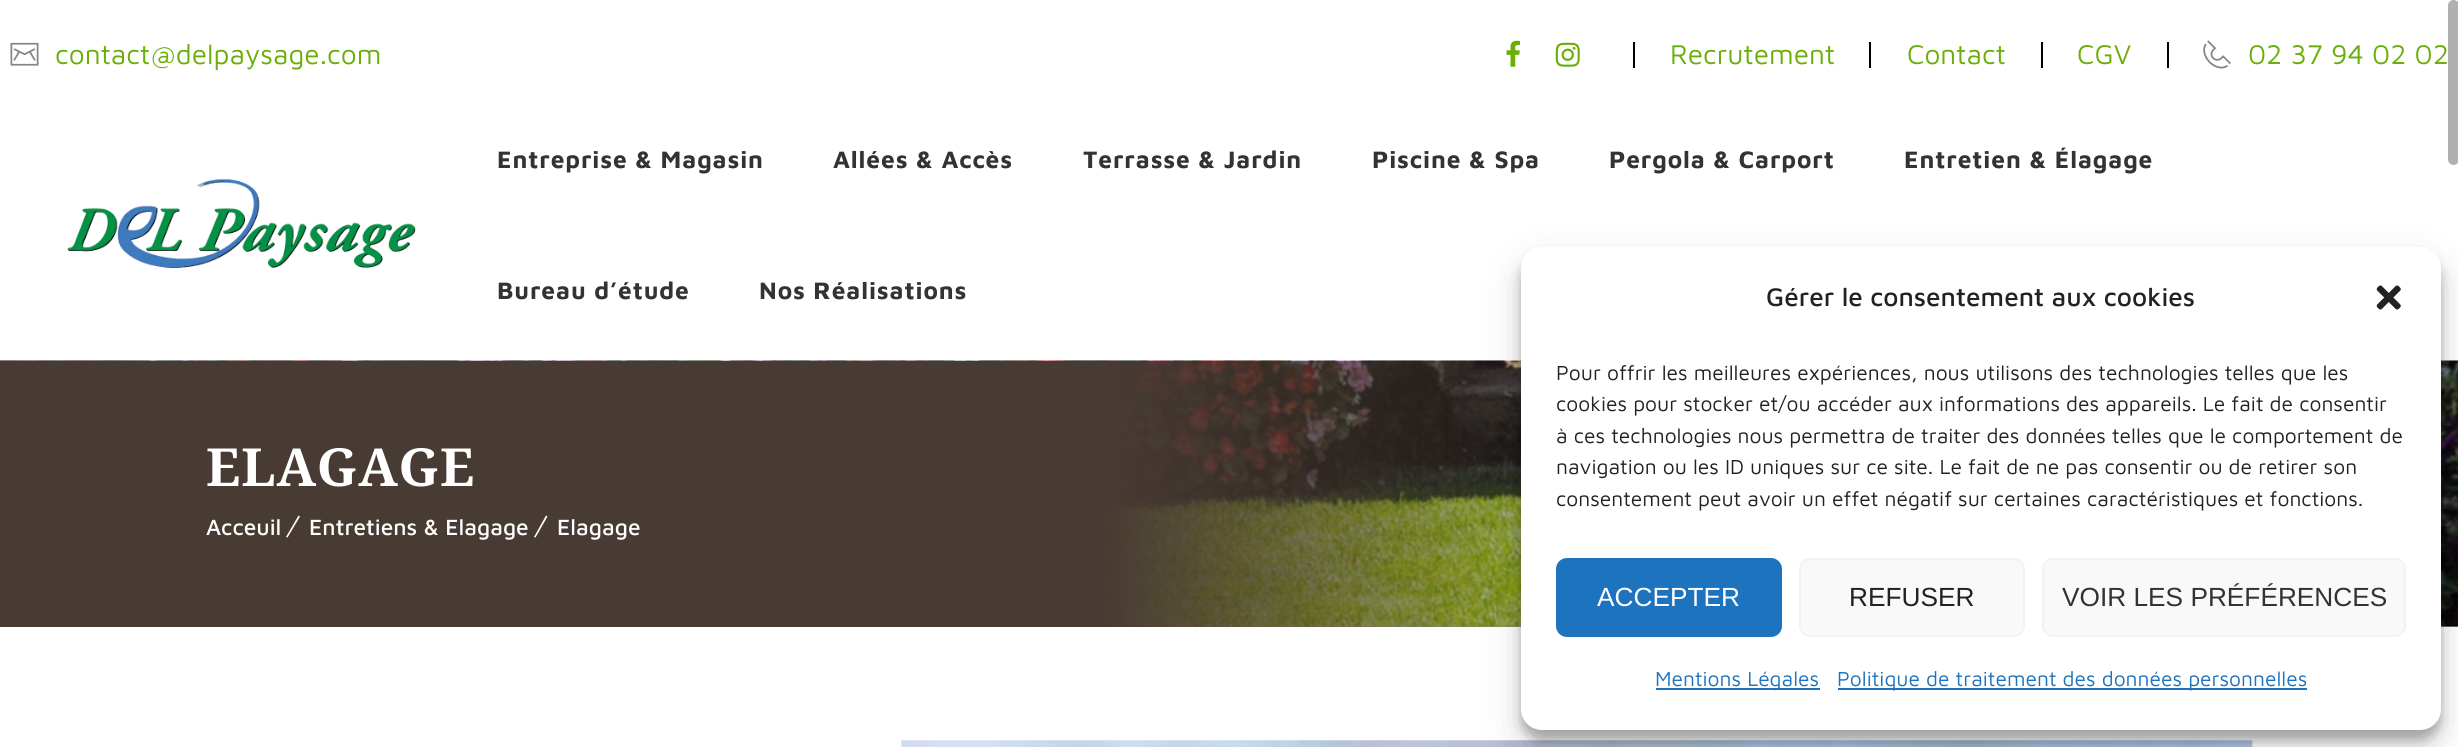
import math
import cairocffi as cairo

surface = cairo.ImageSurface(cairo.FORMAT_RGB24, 2458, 747)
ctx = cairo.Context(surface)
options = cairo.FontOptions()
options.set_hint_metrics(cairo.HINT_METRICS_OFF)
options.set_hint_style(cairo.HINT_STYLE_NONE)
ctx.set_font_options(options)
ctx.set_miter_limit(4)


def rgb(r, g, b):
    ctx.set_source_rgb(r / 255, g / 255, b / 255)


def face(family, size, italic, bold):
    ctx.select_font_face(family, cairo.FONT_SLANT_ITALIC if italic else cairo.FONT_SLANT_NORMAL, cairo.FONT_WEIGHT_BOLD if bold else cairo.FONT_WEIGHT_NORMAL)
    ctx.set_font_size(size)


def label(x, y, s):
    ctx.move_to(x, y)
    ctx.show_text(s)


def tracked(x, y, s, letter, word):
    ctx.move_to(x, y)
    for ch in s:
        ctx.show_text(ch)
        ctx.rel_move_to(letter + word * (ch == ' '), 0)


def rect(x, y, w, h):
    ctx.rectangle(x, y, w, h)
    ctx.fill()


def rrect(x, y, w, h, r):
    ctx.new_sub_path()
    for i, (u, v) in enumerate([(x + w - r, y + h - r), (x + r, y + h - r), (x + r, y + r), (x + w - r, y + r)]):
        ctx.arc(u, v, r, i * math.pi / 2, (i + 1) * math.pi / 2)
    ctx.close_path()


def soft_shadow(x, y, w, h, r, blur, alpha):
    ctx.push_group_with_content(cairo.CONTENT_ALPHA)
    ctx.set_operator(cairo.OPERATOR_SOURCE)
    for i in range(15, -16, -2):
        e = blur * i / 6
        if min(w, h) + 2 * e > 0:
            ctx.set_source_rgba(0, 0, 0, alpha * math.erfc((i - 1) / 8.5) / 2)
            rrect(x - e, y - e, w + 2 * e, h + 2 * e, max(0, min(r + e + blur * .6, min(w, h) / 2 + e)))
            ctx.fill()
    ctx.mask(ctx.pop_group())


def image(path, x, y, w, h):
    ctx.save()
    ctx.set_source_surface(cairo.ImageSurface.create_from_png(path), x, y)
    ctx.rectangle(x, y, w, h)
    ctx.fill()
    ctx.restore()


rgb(255, 255, 255)
ctx.paint()
image('image0.png', 10, 42, 29, 24)
face('Maven Pro', 28, 0, 0)
rgb(105, 175, 7)
label(55, 64, 'contact@delpaysage.com')
image('image1.png', 1506, 40, 14, 27)
image('image2.png', 1555, 42, 25, 25)
rgb(0, 0, 0)
rect(1633, 42, 2, 26)
rgb(105, 175, 7)
label(1670, 64, 'Recrutement')
rgb(0, 0, 0)
rect(1869, 42, 2, 26)
rgb(105, 175, 7)
label(1907, 64, 'Contact')
rgb(0, 0, 0)
rect(2041, 42, 2, 26)
rgb(105, 175, 7)
label(2077, 64, 'CGV')
rgb(0, 0, 0)
rect(2167, 42, 2, 26)
image('image3.png', 2203, 40, 28, 29)
rgb(105, 175, 7)
label(2248, 64, '02 37 94 02 02')
image('image4.png', 67, 179, 349, 89)
face('Maven Pro', 24.5, 0, 1)
rgb(51, 51, 51)
tracked(497, 168, 'Entreprise & Magasin', 0.9, 0)
tracked(833, 168, 'Allées & Accès', 0.9, 0)
tracked(1083, 168, 'Terrasse & Jardin', 0.9, 0)
tracked(1372, 168, 'Piscine & Spa', 0.9, 0)
tracked(1609, 168, 'Pergola & Carport', 0.9, 0)
tracked(1904, 168, 'Entretien & Élagage', 0.9, 0)
tracked(497, 299, 'Bureau d’étude', 0.9, 0)
tracked(759, 299, 'Nos Réalisations', 0.9, 0)
rgb(179, 179, 179)
rect(1110, 626, 1348, 1)
image('image5.png', 0, 360, 2458, 267)
gradient = cairo.LinearGradient(0, 494, 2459, 493)
gradient.add_color_stop_rgba(0.45, 0.282, 0.231, 0.2, 1)
gradient.add_color_stop_rgba(0.7, 0.282, 0.231, 0.2, 0)
ctx.set_source(gradient)
rect(0, 361, 1521, 266)
face('Noto Serif', 52.5, 0, 1)
rgb(255, 255, 255)
tracked(206, 486, 'ELAGAGE', 0.9, 0)
face('Maven Pro Medium', 22.75, 0, 0)
label(206, 535, 'Acceuil')
ctx.new_path()
ctx.move_to(298.5, 515.5)
ctx.line_to(300, 516.5)
ctx.line_to(287.5, 537.5)
ctx.line_to(286, 537)
ctx.close_path()
ctx.fill()
label(309, 535, 'Entretiens & Elagage')
ctx.new_path()
ctx.move_to(546, 515.5)
ctx.line_to(547.5, 516.5)
ctx.line_to(535.5, 537.5)
ctx.line_to(534, 537)
ctx.close_path()
ctx.fill()
label(557, 535, 'Elagage')
image('image6.png', 901, 740, 1352, 7)
rgb(176, 176, 176)
rrect(2449, 1, 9, 163, 4.5)
ctx.fill_preserve()
ctx.stroke()
rgb(0, 0, 0)
soft_shadow(1521, 257, 920, 483, 21, 5, 0.23)
soft_shadow(1521, 264, 920, 483, 21, 17.5, 0.19)
rgb(255, 255, 255)
rrect(1521, 247, 920, 483, 21)
ctx.fill()
face('Maven Pro Medium', 26.25, 0, 0)
rgb(34, 34, 34)
label(1766, 306, 'Gérer le consentement aux cookies')
image('image7.png', 2376, 285, 25, 25)
face('Maven Pro', 21, 0, 0)
label(1556, 380, 'Pour offrir les meilleures expériences, nous utilisons des technologies telles que les')
label(1556, 411, 'cookies pour stocker et/ou accéder aux informations des appareils. Le fait de consentir')
label(1556, 443, 'à ces technologies nous permettra de traiter des données telles que le comportement de')
label(1556, 474, 'navigation ou les ID uniques sur ce site. Le fait de ne pas consentir ou de retirer son')
label(1556, 506, 'consentement peut avoir un effet négatif sur certaines caractéristiques et fonctions.')
rgb(30, 115, 190)
rrect(1557, 559, 224, 77, 10)
ctx.fill_preserve()
ctx.stroke()
face('Liberation Sans', 26.25, 0, 0)
rgb(255, 255, 255)
label(1597, 606, 'ACCEPTER')
rgb(249, 249, 249)
rrect(1800, 559, 224, 77, 10)
ctx.fill_preserve()
rgb(242, 242, 242)
ctx.stroke()
rgb(34, 34, 34)
label(1849, 606, 'REFUSER')
rgb(249, 249, 249)
rrect(2043, 559, 362, 77, 10)
ctx.fill_preserve()
rgb(242, 242, 242)
ctx.stroke()
rgb(51, 51, 51)
label(2062, 606, 'VOIR LES PRÉFÉRENCES')
rgb(30, 115, 190)
rect(1656, 688, 164, 2)
face('Maven Pro', 21, 0, 0)
label(1655, 686, 'Mentions Légales')
rect(1838, 688, 469, 2)
label(1837, 686, 'Politique de traitement des données personnelles')
surface.write_to_png('render.png')
